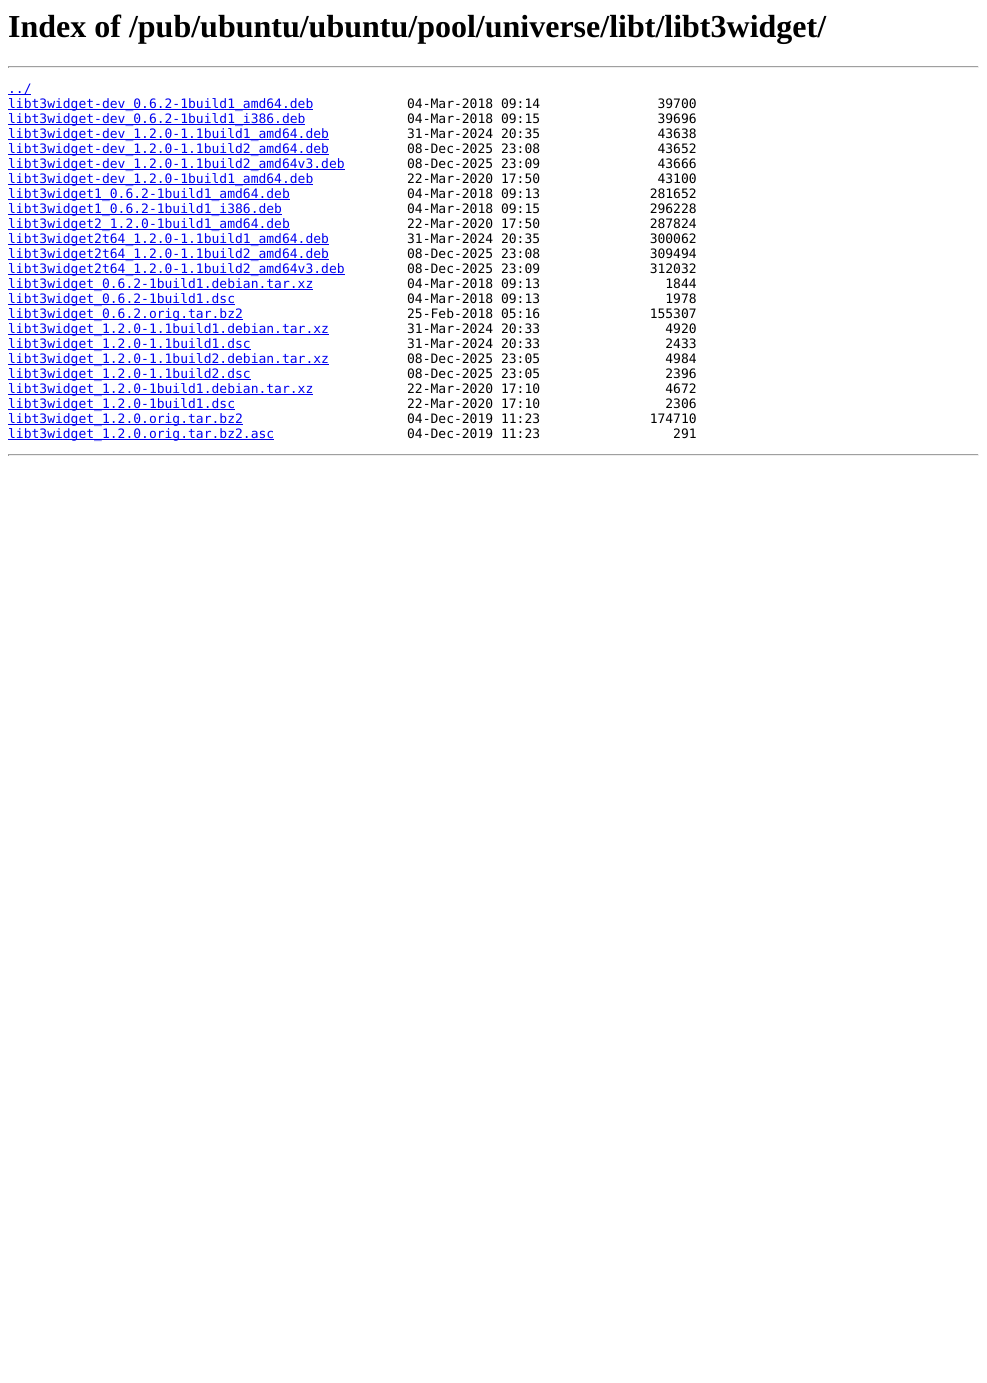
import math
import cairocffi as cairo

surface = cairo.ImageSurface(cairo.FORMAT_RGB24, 987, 1383)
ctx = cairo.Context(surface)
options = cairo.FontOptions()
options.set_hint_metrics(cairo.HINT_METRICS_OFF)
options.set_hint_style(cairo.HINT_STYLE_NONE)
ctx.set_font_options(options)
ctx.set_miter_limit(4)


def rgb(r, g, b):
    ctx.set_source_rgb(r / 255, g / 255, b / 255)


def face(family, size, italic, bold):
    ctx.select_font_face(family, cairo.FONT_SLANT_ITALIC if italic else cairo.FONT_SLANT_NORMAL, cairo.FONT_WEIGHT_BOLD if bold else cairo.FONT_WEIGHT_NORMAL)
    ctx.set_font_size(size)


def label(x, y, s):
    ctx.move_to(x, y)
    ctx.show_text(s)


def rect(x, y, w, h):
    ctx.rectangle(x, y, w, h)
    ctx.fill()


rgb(255, 255, 255)
ctx.paint()
face('Liberation Serif', 32, 0, 1)
rgb(0, 0, 0)
label(8, 37, 'Index of /pub/ubuntu/ubuntu/pool/universe/libt/libt3widget/')
rgb(159, 159, 159)
rect(8, 66, 971, 1)
rgb(238, 238, 238)
rect(978, 66, 1, 2)
rect(8, 67, 971, 1)
rgb(159, 159, 159)
rect(8, 66, 1, 2)
rgb(0, 0, 238)
rect(8, 94, 23, 1)
face('DejaVu Sans Mono', 13, 0, 0)
label(8, 93, '../')
rect(8, 109, 305, 1)
label(8, 108, 'libt3widget-dev_0.6.2-1build1_amd64.deb')
rgb(0, 0, 0)
label(407, 108, '04-Mar-2018 09:14               39700')
rgb(0, 0, 238)
rect(8, 124, 297, 1)
label(8, 123, 'libt3widget-dev_0.6.2-1build1_i386.deb')
rgb(0, 0, 0)
label(407, 123, '04-Mar-2018 09:15               39696')
rgb(0, 0, 238)
rect(8, 139, 321, 1)
label(8, 138, 'libt3widget-dev_1.2.0-1.1build1_amd64.deb')
rgb(0, 0, 0)
label(407, 138, '31-Mar-2024 20:35               43638')
rgb(0, 0, 238)
rect(8, 154, 321, 1)
label(8, 153, 'libt3widget-dev_1.2.0-1.1build2_amd64.deb')
rgb(0, 0, 0)
label(407, 153, '08-Dec-2025 23:08               43652')
rgb(0, 0, 238)
rect(8, 169, 337, 1)
label(8, 168, 'libt3widget-dev_1.2.0-1.1build2_amd64v3.deb')
rgb(0, 0, 0)
label(407, 168, '08-Dec-2025 23:09               43666')
rgb(0, 0, 238)
rect(8, 184, 305, 1)
label(8, 183, 'libt3widget-dev_1.2.0-1build1_amd64.deb')
rgb(0, 0, 0)
label(407, 183, '22-Mar-2020 17:50               43100')
rgb(0, 0, 238)
rect(8, 199, 282, 1)
label(8, 198, 'libt3widget1_0.6.2-1build1_amd64.deb')
rgb(0, 0, 0)
label(407, 198, '04-Mar-2018 09:13              281652')
rgb(0, 0, 238)
rect(8, 214, 274, 1)
label(8, 213, 'libt3widget1_0.6.2-1build1_i386.deb')
rgb(0, 0, 0)
label(407, 213, '04-Mar-2018 09:15              296228')
rgb(0, 0, 238)
rect(8, 229, 282, 1)
label(8, 228, 'libt3widget2_1.2.0-1build1_amd64.deb')
rgb(0, 0, 0)
label(407, 228, '22-Mar-2020 17:50              287824')
rgb(0, 0, 238)
rect(8, 244, 321, 1)
label(8, 243, 'libt3widget2t64_1.2.0-1.1build1_amd64.deb')
rgb(0, 0, 0)
label(407, 243, '31-Mar-2024 20:35              300062')
rgb(0, 0, 238)
rect(8, 259, 321, 1)
label(8, 258, 'libt3widget2t64_1.2.0-1.1build2_amd64.deb')
rgb(0, 0, 0)
label(407, 258, '08-Dec-2025 23:08              309494')
rgb(0, 0, 238)
rect(8, 274, 337, 1)
label(8, 273, 'libt3widget2t64_1.2.0-1.1build2_amd64v3.deb')
rgb(0, 0, 0)
label(407, 273, '08-Dec-2025 23:09              312032')
rgb(0, 0, 238)
rect(8, 289, 305, 1)
label(8, 288, 'libt3widget_0.6.2-1build1.debian.tar.xz')
rgb(0, 0, 0)
label(407, 288, '04-Mar-2018 09:13                1844')
rgb(0, 0, 238)
rect(8, 304, 227, 1)
label(8, 303, 'libt3widget_0.6.2-1build1.dsc')
rgb(0, 0, 0)
label(407, 303, '04-Mar-2018 09:13                1978')
rgb(0, 0, 238)
rect(8, 319, 235, 1)
label(8, 318, 'libt3widget_0.6.2.orig.tar.bz2')
rgb(0, 0, 0)
label(407, 318, '25-Feb-2018 05:16              155307')
rgb(0, 0, 238)
rect(8, 334, 321, 1)
label(8, 333, 'libt3widget_1.2.0-1.1build1.debian.tar.xz')
rgb(0, 0, 0)
label(407, 333, '31-Mar-2024 20:33                4920')
rgb(0, 0, 238)
rect(8, 349, 243, 1)
label(8, 348, 'libt3widget_1.2.0-1.1build1.dsc')
rgb(0, 0, 0)
label(407, 348, '31-Mar-2024 20:33                2433')
rgb(0, 0, 238)
rect(8, 364, 321, 1)
label(8, 363, 'libt3widget_1.2.0-1.1build2.debian.tar.xz')
rgb(0, 0, 0)
label(407, 363, '08-Dec-2025 23:05                4984')
rgb(0, 0, 238)
rect(8, 379, 243, 1)
label(8, 378, 'libt3widget_1.2.0-1.1build2.dsc')
rgb(0, 0, 0)
label(407, 378, '08-Dec-2025 23:05                2396')
rgb(0, 0, 238)
rect(8, 394, 305, 1)
label(8, 393, 'libt3widget_1.2.0-1build1.debian.tar.xz')
rgb(0, 0, 0)
label(407, 393, '22-Mar-2020 17:10                4672')
rgb(0, 0, 238)
rect(8, 409, 227, 1)
label(8, 408, 'libt3widget_1.2.0-1build1.dsc')
rgb(0, 0, 0)
label(407, 408, '22-Mar-2020 17:10                2306')
rgb(0, 0, 238)
rect(8, 424, 235, 1)
label(8, 423, 'libt3widget_1.2.0.orig.tar.bz2')
rgb(0, 0, 0)
label(407, 423, '04-Dec-2019 11:23              174710')
rgb(0, 0, 238)
rect(8, 439, 266, 1)
label(8, 438, 'libt3widget_1.2.0.orig.tar.bz2.asc')
rgb(0, 0, 0)
label(407, 438, '04-Dec-2019 11:23                 291')
rgb(159, 159, 159)
rect(8, 454, 971, 1)
rgb(238, 238, 238)
rect(978, 454, 1, 2)
rect(8, 455, 971, 1)
rgb(159, 159, 159)
rect(8, 454, 1, 2)
surface.write_to_png('render.png')
